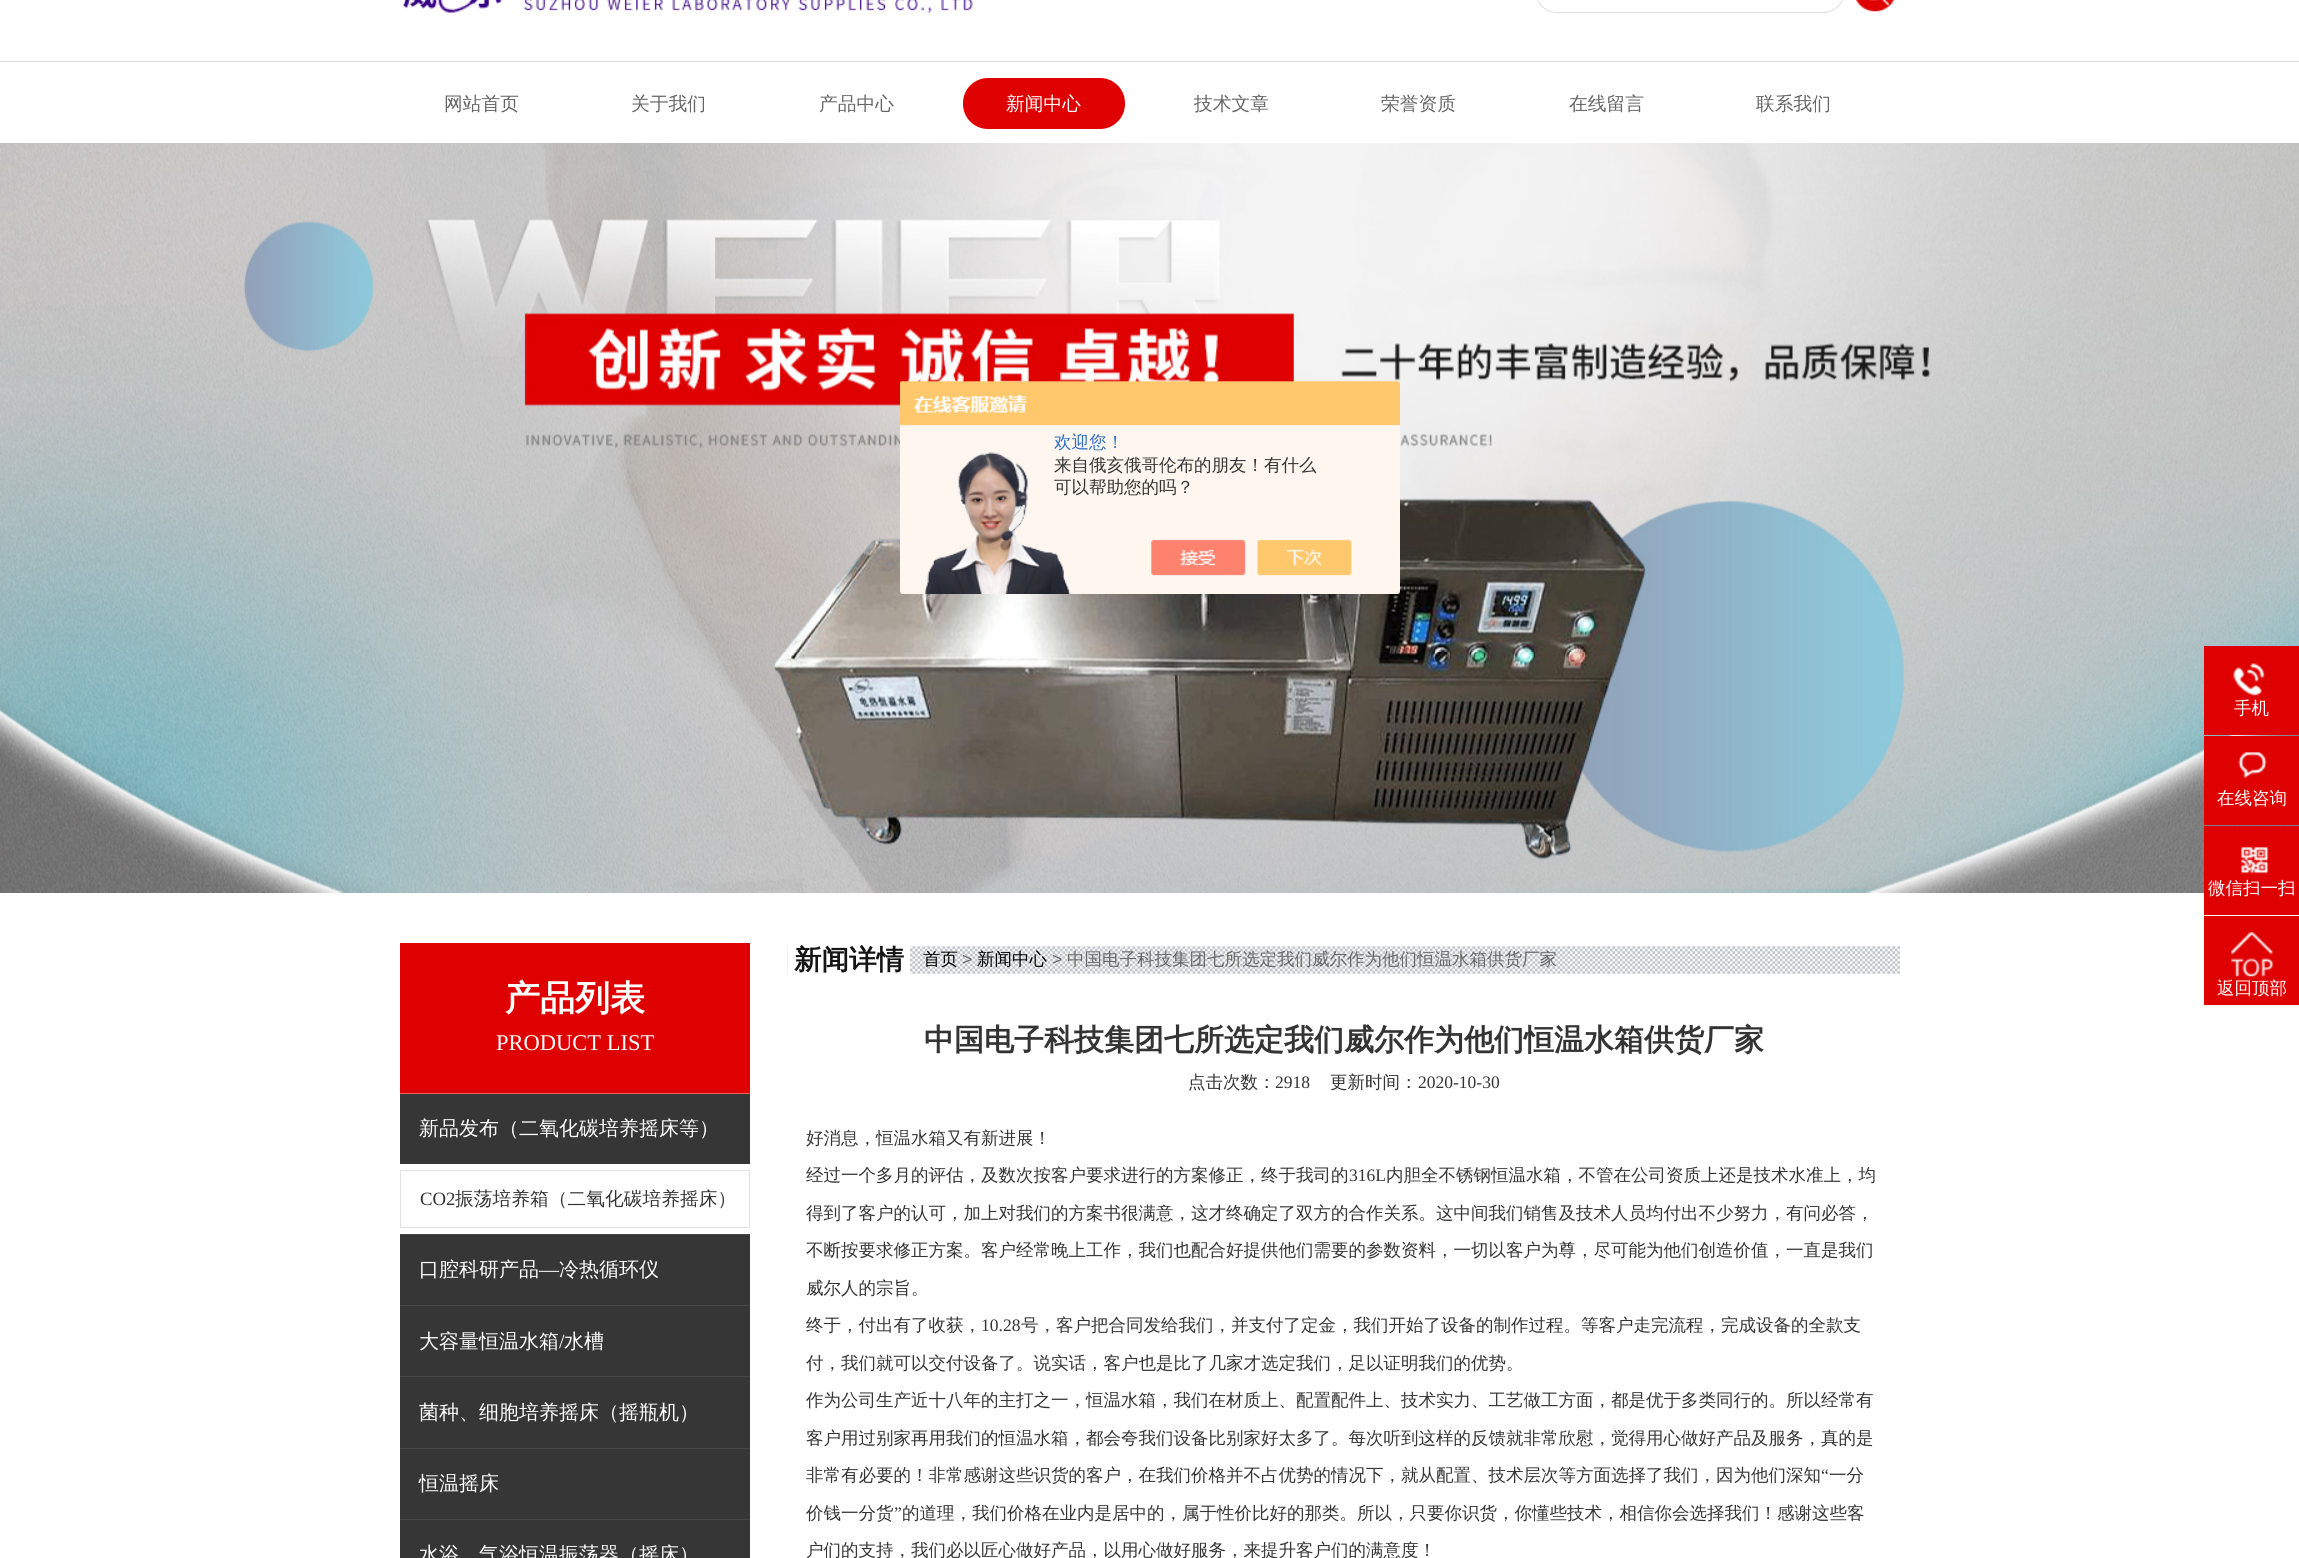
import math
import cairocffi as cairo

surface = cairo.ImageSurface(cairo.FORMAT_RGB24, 2299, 1558)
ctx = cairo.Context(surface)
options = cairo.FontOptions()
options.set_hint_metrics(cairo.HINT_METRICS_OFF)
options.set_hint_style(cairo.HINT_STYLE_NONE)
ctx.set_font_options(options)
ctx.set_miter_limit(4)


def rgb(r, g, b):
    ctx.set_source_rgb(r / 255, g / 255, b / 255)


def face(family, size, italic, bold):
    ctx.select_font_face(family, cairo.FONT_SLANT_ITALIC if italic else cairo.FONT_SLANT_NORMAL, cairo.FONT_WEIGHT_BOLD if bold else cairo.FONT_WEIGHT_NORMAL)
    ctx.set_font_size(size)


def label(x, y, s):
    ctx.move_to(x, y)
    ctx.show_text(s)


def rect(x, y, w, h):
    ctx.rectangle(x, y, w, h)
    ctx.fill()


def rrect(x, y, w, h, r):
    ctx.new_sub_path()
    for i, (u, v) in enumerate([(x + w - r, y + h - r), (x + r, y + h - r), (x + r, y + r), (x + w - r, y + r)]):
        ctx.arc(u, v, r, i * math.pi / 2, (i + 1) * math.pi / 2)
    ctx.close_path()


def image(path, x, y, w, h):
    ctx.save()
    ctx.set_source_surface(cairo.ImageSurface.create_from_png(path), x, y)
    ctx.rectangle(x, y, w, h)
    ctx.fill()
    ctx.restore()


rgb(255, 255, 255)
ctx.paint()
image('image0.png', 402, 0, 571, 14)
rrect(1535.5, -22.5, 309, 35, 21.5)
rgb(222, 222, 222)
ctx.set_line_width(1)
ctx.stroke()
image('image1.png', 1855, 0, 40, 12)
rgb(221, 221, 221)
rect(0, 61, 2299, 1)
face('WenQuanYi Zen Hei Medium', 18.75, 0, 0)
rgb(102, 102, 102)
label(444, 110, '网站首页')
label(631, 110, '关于我们')
label(819, 110, '产品中心')
rgb(223, 0, 1)
rrect(963, 78, 162, 51, 25)
ctx.fill()
rgb(255, 255, 255)
label(1006, 110, '新闻中心')
rgb(102, 102, 102)
label(1194, 110, '技术文章')
label(1381, 110, '荣誉资质')
label(1569, 110, '在线留言')
label(1756, 110, '联系我们')
image('image2.png', 0, 143, 2299, 750)
image('image3.png', 900, 381, 500, 213)
face('WenQuanYi Zen Hei Medium', 17.5, 0, 0)
rgb(46, 110, 198)
label(1054, 448, '欢迎您！')
rgb(52, 52, 52)
label(1054, 471, '来自俄亥俄哥伦布的朋友！有什么')
label(1054, 493, '可以帮助您的吗？')
rgb(223, 0, 1)
rect(2204, 646, 95, 89)
image('image4.png', 2233, 663, 32, 33)
rgb(255, 255, 255)
label(2234, 714, '手机')
rgb(223, 0, 1)
rect(2204, 736, 95, 89)
image('image5.png', 2238, 752, 29, 27)
rgb(255, 255, 255)
label(2217, 804, '在线咨询')
rgb(223, 0, 1)
rect(2204, 826, 95, 89)
image('image6.png', 2241, 847, 28, 27)
rgb(255, 255, 255)
label(2208, 894, '微信扫一扫')
rgb(223, 0, 1)
rect(2204, 916, 95, 89)
image('image7.png', 2231, 932, 43, 45)
rgb(255, 255, 255)
label(2217, 994, '返回顶部')
rgb(223, 0, 1)
rect(400, 943, 350, 150)
rgb(236, 102, 103)
rect(400, 1093, 350, 1)
face('WenQuanYi Zen Hei', 35, 0, 1)
rgb(255, 255, 255)
label(505, 1010, '产品列表')
face('Liberation Serif', 22.5, 0, 0)
label(496, 1050, 'PRODUCT LIST')
rgb(54, 54, 54)
rect(400, 1094, 350, 70)
face('WenQuanYi Zen Hei Medium', 20, 0, 0)
rgb(255, 255, 255)
label(419, 1135, '新品发布（二氧化碳培养摇床等）')
ctx.rectangle(400.5, 1170.5, 349, 57)
rgb(226, 226, 226)
ctx.stroke()
face('Liberation Serif', 18.75, 0, 0)
rgb(52, 52, 52)
label(420, 1205, 'CO2')
face('WenQuanYi Zen Hei Medium', 18.75, 0, 0)
label(455, 1205, '振荡培养箱（二氧化碳培养摇床）')
rgb(54, 54, 54)
rect(400, 1235, 350, 70)
rgb(71, 71, 71)
rect(400, 1234, 350, 1)
face('WenQuanYi Zen Hei Medium', 20, 0, 0)
rgb(255, 255, 255)
label(419, 1276, '口腔科研产品')
face('Liberation Serif', 20, 0, 0)
label(539, 1276, '—')
face('WenQuanYi Zen Hei Medium', 20, 0, 0)
label(559, 1276, '冷热循环仪')
rgb(54, 54, 54)
rect(400, 1306, 350, 70)
rgb(71, 71, 71)
rect(400, 1305, 350, 1)
rgb(255, 255, 255)
label(419, 1348, '大容量恒温水箱')
face('Liberation Serif', 20, 0, 0)
label(559, 1348, '/')
face('WenQuanYi Zen Hei Medium', 20, 0, 0)
label(564, 1348, '水槽')
rgb(54, 54, 54)
rect(400, 1377, 350, 71)
rgb(71, 71, 71)
rect(400, 1376, 350, 1)
rgb(255, 255, 255)
label(419, 1419, '菌种、细胞培养摇床（摇瓶机）')
rgb(54, 54, 54)
rect(400, 1449, 350, 70)
rgb(71, 71, 71)
rect(400, 1448, 350, 1)
rgb(255, 255, 255)
label(419, 1490, '恒温摇床')
rgb(54, 54, 54)
rect(400, 1520, 350, 38)
rgb(71, 71, 71)
rect(400, 1519, 350, 1)
rgb(255, 255, 255)
label(419, 1561, '水浴、气浴恒温振荡器（摇床）')
image('image8.png', 787, 946, 1113, 28)
rect(788, 946, 122, 28)
face('WenQuanYi Zen Hei', 27.5, 0, 1)
rgb(20, 20, 20)
label(794, 969, '新闻详情')
face('WenQuanYi Zen Hei Medium', 17.5, 0, 0)
rgb(0, 0, 0)
label(923, 965, '首页')
face('Liberation Sans', 17.5, 0, 0)
rgb(102, 102, 102)
label(962, 965, '>')
face('WenQuanYi Zen Hei Medium', 17.5, 0, 0)
rgb(0, 0, 0)
label(977, 965, '新闻中心')
face('Liberation Sans', 17.5, 0, 0)
rgb(102, 102, 102)
label(1052, 965, '>')
face('WenQuanYi Zen Hei Medium', 17.5, 0, 0)
label(1067, 965, '中国电子科技集团七所选定我们威尔作为他们恒温水箱供货厂家')
face('WenQuanYi Zen Hei', 30, 0, 1)
rgb(52, 52, 52)
label(924, 1050, '中国电子科技集团七所选定我们威尔作为他们恒温水箱供货厂家')
face('WenQuanYi Zen Hei Medium', 17.5, 0, 0)
label(1188, 1088, '点击次数：')
face('Liberation Serif', 17.5, 0, 0)
label(1275, 1088, '2918')
face('WenQuanYi Zen Hei Medium', 17.5, 0, 0)
label(1330, 1088, '更新时间：')
face('Liberation Serif', 17.5, 0, 0)
label(1418, 1088, '2020-10-30')
face('WenQuanYi Zen Hei Medium', 17.5, 0, 0)
label(806, 1144, '好消息，恒温水箱又有新进展！')
label(806, 1181, '经过一个多月的评估，及数次按客户要求进行的方案修正，终于我司的')
face('Liberation Serif', 17.5, 0, 0)
label(1349, 1181, '316L')
face('WenQuanYi Zen Hei Medium', 17.5, 0, 0)
label(1386, 1181, '内胆全不锈钢恒温水箱，不管在公司资质上还是技术水准上，均')
label(806, 1219, '得到了客户的认可，加上对我们的方案书很满意，这才终确定了双方的合作关系。这中间我们销售及技术人员均付出不少努力，有问必答，')
label(806, 1256, '不断按要求修正方案。客户经常晚上工作，我们也配合好提供他们需要的参数资料，一切以客户为尊，尽可能为他们创造价值，一直是我们')
label(806, 1294, '威尔人的宗旨。')
label(806, 1331, '终于，付出有了收获，')
face('Liberation Serif', 17.5, 0, 0)
label(981, 1331, '10.28')
face('WenQuanYi Zen Hei Medium', 17.5, 0, 0)
label(1021, 1331, '号，客户把合同发给我们，并支付了定金，我们开始了设备的制作过程。等客户走完流程，完成设备的全款支')
label(806, 1369, '付，我们就可以交付设备了。说实话，客户也是比了几家才选定我们，足以证明我们的优势。')
label(806, 1406, '作为公司生产近十八年的主打之一，恒温水箱，我们在材质上、配置配件上、技术实力、工艺做工方面，都是优于多类同行的。所以经常有')
label(806, 1444, '客户用过别家再用我们的恒温水箱，都会夸我们设备比别家好太多了。每次听到这样的反馈就非常欣慰，觉得用心做好产品及服务，真的是')
label(806, 1481, '非常有必要的！非常感谢这些识货的客户，在我们价格并不占优势的情况下，就从配置、技术层次等方面选择了我们，因为他们深知')
face('Liberation Serif', 17.5, 0, 0)
label(1821, 1481, '“')
face('WenQuanYi Zen Hei Medium', 17.5, 0, 0)
label(1829, 1481, '一分')
label(806, 1519, '价钱一分货')
face('Liberation Serif', 17.5, 0, 0)
label(894, 1519, '”')
face('WenQuanYi Zen Hei Medium', 17.5, 0, 0)
label(902, 1519, '的道理，我们价格在业内是居中的，属于性价比好的那类。所以，只要你识货，你懂些技术，相信你会选择我们！感谢这些客')
label(806, 1556, '户们的支持，我们必以匠心做好产品，以用心做好服务，来提升客户们的满意度！')
surface.write_to_png('render.png')
